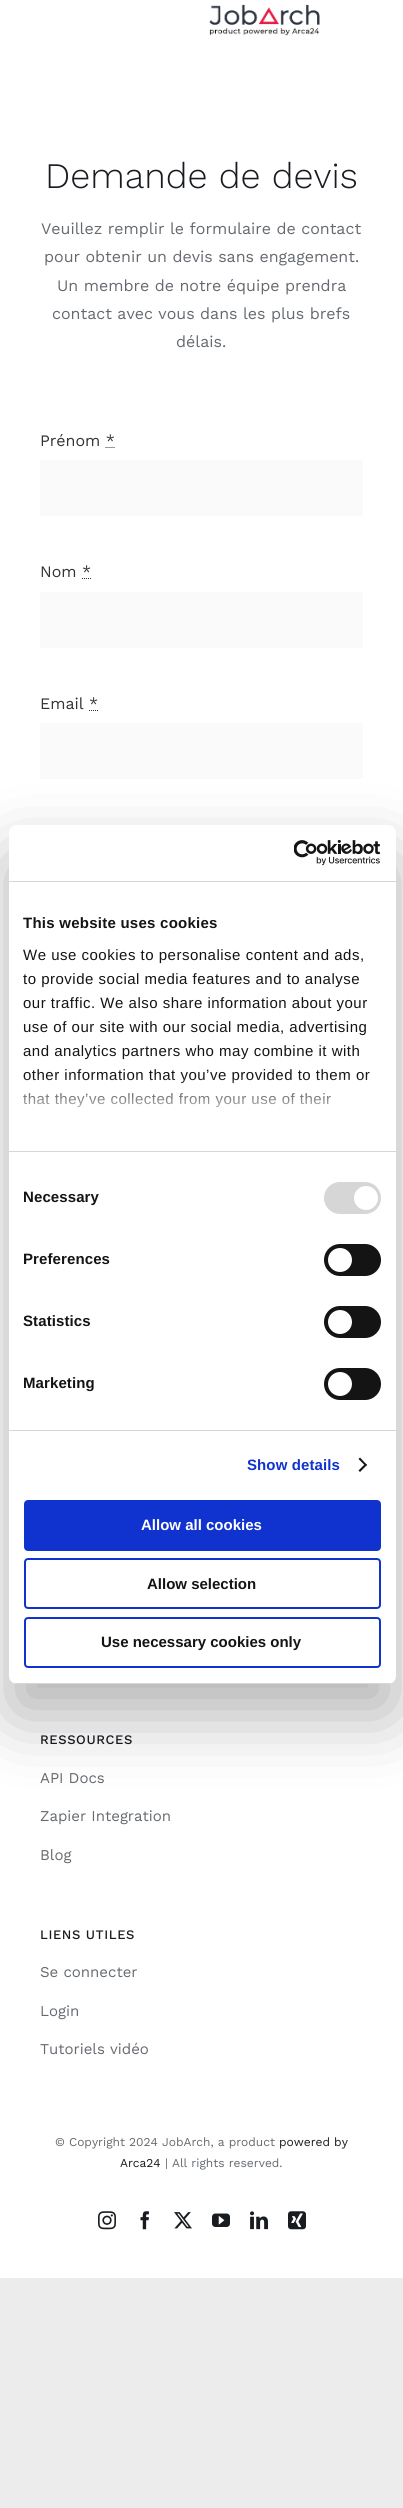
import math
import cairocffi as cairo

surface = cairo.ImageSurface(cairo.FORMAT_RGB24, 403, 2508)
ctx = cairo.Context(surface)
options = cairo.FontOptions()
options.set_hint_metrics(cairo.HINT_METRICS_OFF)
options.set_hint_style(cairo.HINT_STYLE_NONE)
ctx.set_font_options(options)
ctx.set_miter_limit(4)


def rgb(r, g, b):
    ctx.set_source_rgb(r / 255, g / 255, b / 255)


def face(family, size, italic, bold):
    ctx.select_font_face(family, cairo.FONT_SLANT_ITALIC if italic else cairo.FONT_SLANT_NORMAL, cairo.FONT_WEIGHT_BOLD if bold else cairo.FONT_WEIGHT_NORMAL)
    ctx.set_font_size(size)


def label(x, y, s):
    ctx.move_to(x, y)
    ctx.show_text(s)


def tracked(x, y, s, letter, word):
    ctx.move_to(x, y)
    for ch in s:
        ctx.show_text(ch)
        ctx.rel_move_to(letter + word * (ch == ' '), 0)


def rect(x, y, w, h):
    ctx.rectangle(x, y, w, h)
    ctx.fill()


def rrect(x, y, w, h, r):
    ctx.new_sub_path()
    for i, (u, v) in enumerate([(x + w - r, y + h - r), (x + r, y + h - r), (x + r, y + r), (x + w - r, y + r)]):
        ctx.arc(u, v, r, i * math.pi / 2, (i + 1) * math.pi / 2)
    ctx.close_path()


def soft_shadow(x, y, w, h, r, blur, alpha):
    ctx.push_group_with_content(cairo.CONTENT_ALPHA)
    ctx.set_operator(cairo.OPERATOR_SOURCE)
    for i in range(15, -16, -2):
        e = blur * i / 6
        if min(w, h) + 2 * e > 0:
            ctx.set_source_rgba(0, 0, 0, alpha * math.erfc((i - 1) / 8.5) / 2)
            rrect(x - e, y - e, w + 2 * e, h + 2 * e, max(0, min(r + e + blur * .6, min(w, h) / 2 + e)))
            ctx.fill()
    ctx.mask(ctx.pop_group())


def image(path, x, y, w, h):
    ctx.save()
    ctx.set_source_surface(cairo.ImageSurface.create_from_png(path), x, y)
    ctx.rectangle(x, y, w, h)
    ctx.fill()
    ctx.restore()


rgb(236, 236, 237)
ctx.paint()
rgb(255, 255, 255)
rect(0, 0, 403, 2278)
image('image0.png', 209, 4, 111, 32)
face('Work Sans Light', 35.9, 0, 0)
rgb(24, 27, 32)
label(45, 188, 'Demande de devis')
face('Work Sans', 16, 0, 0)
rgb(101, 106, 112)
label(41, 234, 'Veuillez remplir le formulaire de contact')
label(44, 262, 'pour obtenir un devis sans engagement.')
label(57, 291, 'Un membre de notre équipe prendra')
label(52, 319, 'contact avec vous dans les plus brefs')
label(176, 347, 'délais.')
rgb(51, 51, 51)
label(40, 446, 'Prénom *')
ctx.new_path()
ctx.move_to(105.5, 447.5)
ctx.line_to(115, 447.5)
ctx.set_line_width(1)
ctx.set_dash([1, 1])
ctx.stroke()
rgb(250, 250, 250)
rect(40, 460, 323, 56)
rgb(51, 51, 51)
label(40, 577, 'Nom *')
ctx.new_path()
ctx.move_to(82, 578.5)
ctx.line_to(91, 578.5)
ctx.stroke()
rgb(250, 250, 250)
rect(40, 592, 323, 56)
rgb(51, 51, 51)
label(40, 709, 'Email *')
ctx.new_path()
ctx.move_to(89, 710.5)
ctx.line_to(98, 710.5)
ctx.stroke()
rgb(250, 250, 250)
rect(40, 723, 323, 56)
face('Work Sans Medium', 13, 0, 0)
rgb(24, 27, 32)
tracked(40, 1744, 'RESSOURCES', 0.6, 0)
face('Work Sans', 15, 0, 0)
rgb(101, 106, 112)
label(40, 1783, 'API Docs')
label(40, 1821, 'Zapier Integration')
label(40, 1860, 'Blog')
face('Work Sans Medium', 13, 0, 0)
rgb(24, 27, 32)
tracked(40, 1939, 'LIENS UTILES', 0.6, 0)
face('Work Sans', 15, 0, 0)
rgb(101, 106, 112)
label(40, 1977, 'Se connecter')
label(40, 2016, 'Login')
label(40, 2054, 'Tutoriels vidéo')
face('Work Sans', 12, 0, 0)
label(55, 2146, '© Copyright 2024 JobArch, a product')
rgb(24, 27, 32)
label(279, 2146, 'powered by')
label(120, 2167, 'Arca24')
rgb(101, 106, 112)
label(165, 2167, '| All rights reserved.')
image('image1.png', 98, 2211, 18, 19)
image('image2.png', 140, 2211, 9, 19)
image('image3.png', 174, 2212, 18, 17)
image('image4.png', 212, 2213, 18, 14)
image('image5.png', 250, 2211, 18, 19)
image('image6.png', 288, 2211, 18, 19)
rgb(0, 0, 0)
soft_shadow(9, 857, 387, 859, 8, 34, 0.3)
rgb(255, 255, 255)
rrect(9, 825, 387, 859, 8)
ctx.fill()
rgb(214, 214, 214)
rect(9, 881, 387, 1)
image('image7.png', 294, 840, 87, 26)
rect(9, 1151, 387, 1)
face('Liberation Sans', 15, 0, 1)
rgb(20, 20, 20)
tracked(23, 928, 'This website uses cookies', 0.25, 0)
face('Liberation Sans', 15, 0, 0)
tracked(23, 960, 'We use cookies to personalise content and ads,', 0.5, 0)
tracked(23, 984, 'to provide social media features and to analyse', 0.5, 0)
tracked(23, 1008, 'our traffic. We also share information about your', 0.5, 0)
tracked(23, 1032, 'use of our site with our social media, advertising', 0.5, 0)
tracked(23, 1056, 'and analytics partners who may combine it with', 0.5, 0)
tracked(23, 1080, 'other information that you’ve provided to them or', 0.5, 0)
tracked(23, 1104, 'that they’ve collected from your use of their', 0.5, 0)
gradient = cairo.LinearGradient(196, 1151, 196, 1076)
gradient.add_color_stop_rgba(0, 1, 1, 1, 1)
gradient.add_color_stop_rgba(0.5, 1, 1, 1, 0.8)
gradient.add_color_stop_rgba(1, 1, 1, 1, 0)
ctx.set_source(gradient)
rect(23, 1077, 344, 31)
rgb(214, 214, 214)
rect(9, 1430, 387, 1)
face('Liberation Sans', 15, 0, 1)
rgb(20, 20, 20)
tracked(23, 1202, 'Necessary', 0.1, 0)
rgb(214, 214, 214)
rrect(324, 1182, 57, 32, 16)
ctx.fill()
rgb(255, 255, 255)
ctx.arc(366, 1198, 12, 0, 2 * math.pi)
ctx.fill()
rgb(20, 20, 20)
tracked(23, 1264, 'Preferences', 0.1, 0)
rrect(324, 1244, 57, 32, 16)
ctx.fill()
rgb(255, 255, 255)
ctx.arc(340, 1260, 12, 0, 2 * math.pi)
ctx.fill()
rgb(20, 20, 20)
tracked(23, 1326, 'Statistics', 0.1, 0)
rrect(324, 1306, 57, 32, 16)
ctx.fill()
rgb(255, 255, 255)
ctx.arc(340, 1322, 12, 0, 2 * math.pi)
ctx.fill()
rgb(20, 20, 20)
tracked(23, 1388, 'Marketing', 0.1, 0)
rrect(324, 1368, 57, 32, 16)
ctx.fill()
rgb(255, 255, 255)
ctx.arc(340, 1384, 12, 0, 2 * math.pi)
ctx.fill()
rgb(16, 50, 207)
tracked(247, 1470, 'Show details', 0.1, 0)
rgb(20, 20, 20)
ctx.new_path()
ctx.move_to(360, 1457.5)
ctx.line_to(367, 1465)
ctx.line_to(365.5, 1466)
ctx.line_to(358.5, 1459)
ctx.close_path()
ctx.fill()
ctx.new_path()
ctx.move_to(365.5, 1463.5)
ctx.line_to(367, 1465)
ctx.line_to(360, 1472)
ctx.line_to(358.5, 1470.5)
ctx.close_path()
ctx.fill()
ctx.save()
rrect(9, 825, 387, 859, 8)
ctx.clip()
rgb(214, 214, 214)
rect(9, 1683, 387, 1)
ctx.restore()
rgb(16, 50, 207)
rrect(25, 1501, 355, 49, 3)
ctx.fill_preserve()
ctx.set_line_width(2)
ctx.set_dash([])
ctx.stroke()
rgb(255, 255, 255)
label(141, 1530, 'Allow all cookies')
rrect(25, 1559, 355, 49, 3)
rgb(16, 50, 207)
ctx.stroke()
rgb(20, 20, 20)
label(147, 1589, 'Allow selection')
rrect(25, 1618, 355, 49, 3)
rgb(16, 50, 207)
ctx.stroke()
rgb(20, 20, 20)
label(101, 1647, 'Use necessary cookies only')
surface.write_to_png('render.png')
